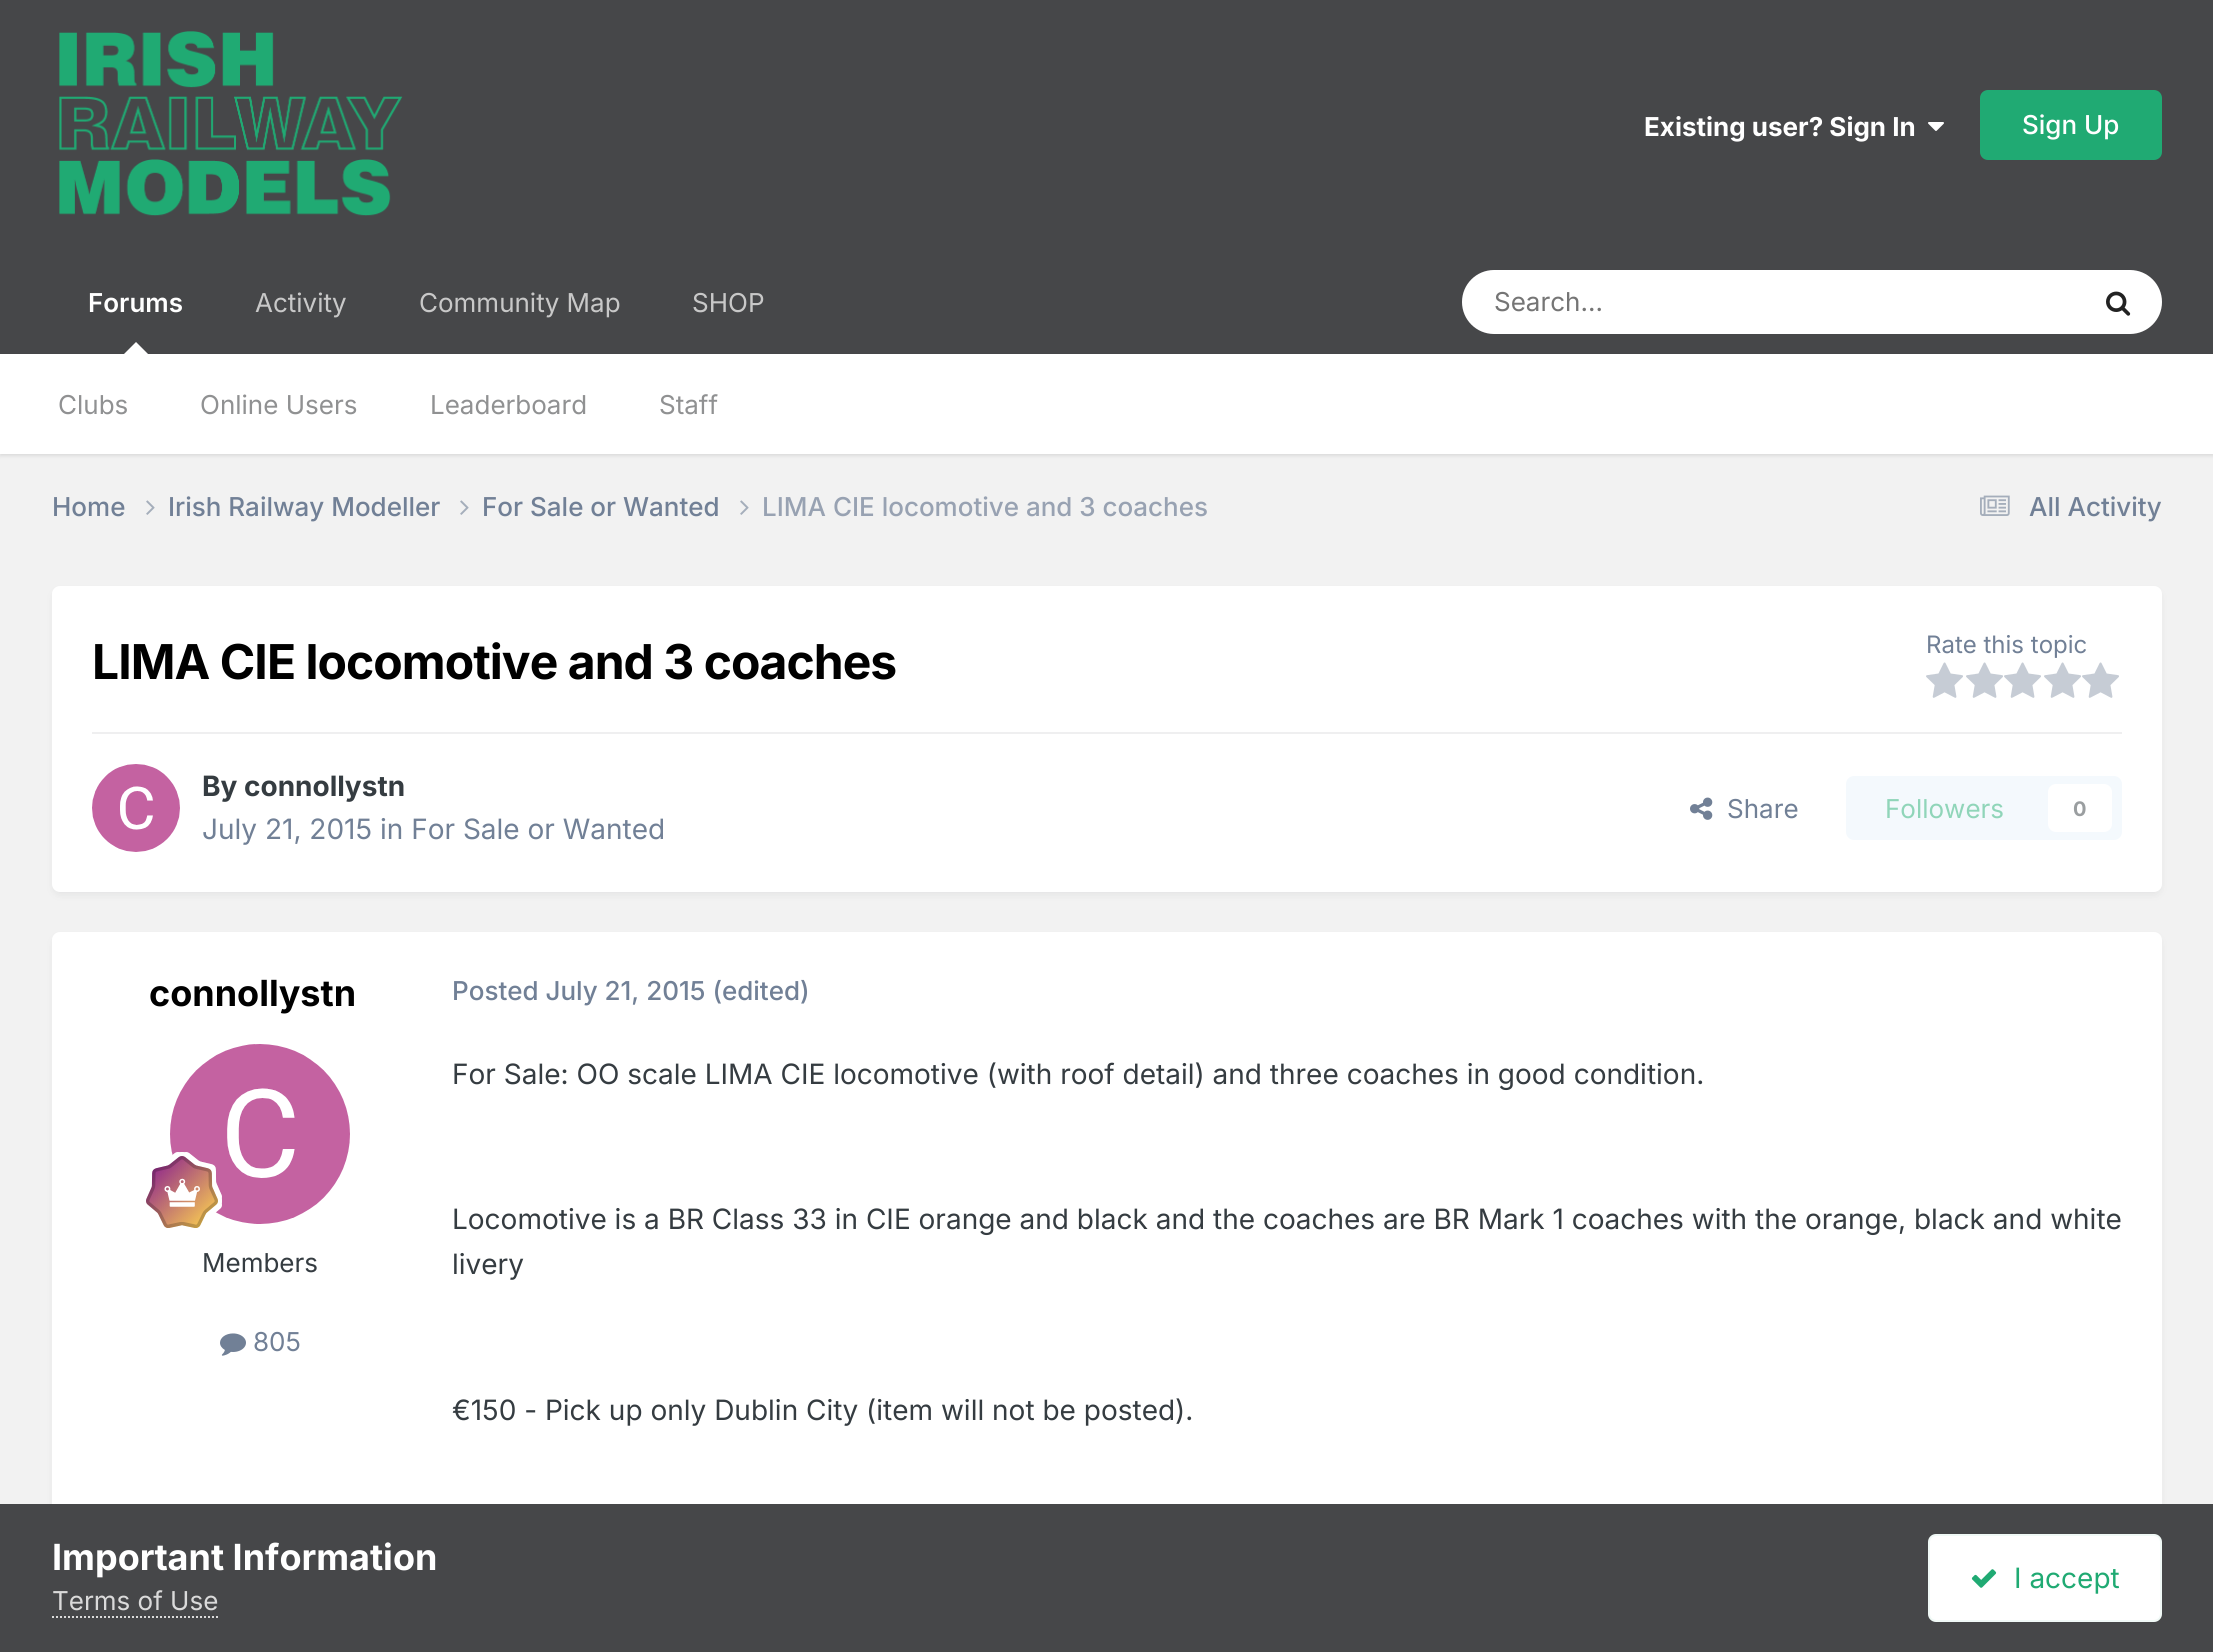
import math
import cairocffi as cairo

surface = cairo.ImageSurface(cairo.FORMAT_RGB24, 2213, 1652)
ctx = cairo.Context(surface)
options = cairo.FontOptions()
options.set_hint_metrics(cairo.HINT_METRICS_OFF)
options.set_hint_style(cairo.HINT_STYLE_NONE)
ctx.set_font_options(options)
ctx.set_miter_limit(4)


def rgb(r, g, b):
    ctx.set_source_rgb(r / 255, g / 255, b / 255)


def face(family, size, italic, bold):
    ctx.select_font_face(family, cairo.FONT_SLANT_ITALIC if italic else cairo.FONT_SLANT_NORMAL, cairo.FONT_WEIGHT_BOLD if bold else cairo.FONT_WEIGHT_NORMAL)
    ctx.set_font_size(size)


def label(x, y, s):
    ctx.move_to(x, y)
    ctx.show_text(s)


def tracked(x, y, s, letter, word):
    ctx.move_to(x, y)
    for ch in s:
        ctx.show_text(ch)
        ctx.rel_move_to(letter + word * (ch == ' '), 0)


def rect(x, y, w, h):
    ctx.rectangle(x, y, w, h)
    ctx.fill()


def rrect(x, y, w, h, r):
    ctx.new_sub_path()
    for i, (u, v) in enumerate([(x + w - r, y + h - r), (x + r, y + h - r), (x + r, y + r), (x + w - r, y + r)]):
        ctx.arc(u, v, r, i * math.pi / 2, (i + 1) * math.pi / 2)
    ctx.close_path()


def soft_shadow(x, y, w, h, r, blur, alpha):
    ctx.push_group_with_content(cairo.CONTENT_ALPHA)
    ctx.set_operator(cairo.OPERATOR_SOURCE)
    for i in range(15, -16, -2):
        e = blur * i / 6
        if min(w, h) + 2 * e > 0:
            ctx.set_source_rgba(0, 0, 0, alpha * math.erfc((i - 1) / 8.5) / 2)
            rrect(x - e, y - e, w + 2 * e, h + 2 * e, max(0, min(r + e + blur * .6, min(w, h) / 2 + e)))
            ctx.fill()
    ctx.mask(ctx.pop_group())


def image(path, x, y, w, h):
    ctx.save()
    ctx.set_source_surface(cairo.ImageSurface.create_from_png(path), x, y)
    ctx.rectangle(x, y, w, h)
    ctx.fill()
    ctx.restore()


rgb(242, 242, 242)
ctx.paint()
rgb(70, 71, 73)
rect(0, 0, 2213, 354)
image('image0.png', 59, 31, 344, 185)
face('Inter', 26, 0, 1)
rgb(255, 255, 255)
label(1644, 136, 'Existing user? Sign In')
image('image1.png', 1928, 122, 16, 9)
rgb(32, 170, 115)
rrect(1980, 90, 182, 70, 8)
ctx.fill()
face('Inter Medium', 26, 0, 0)
rgb(255, 255, 255)
label(2022, 134, 'Sign Up')
face('Inter', 26, 0, 0)
rgb(200, 200, 200)
label(255, 312, 'Activity')
label(419, 312, 'Community Map')
label(692, 312, 'SHOP')
face('Inter SemiBold', 26, 0, 0)
rgb(255, 255, 255)
label(88, 312, 'Forums')
rgb(0, 0, 0)
soft_shadow(0, 356, 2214, 100, 0, 2, 0.1)
rgb(255, 255, 255)
ctx.new_path()
ctx.move_to(148, 354)
ctx.line_to(124, 354)
ctx.line_to(136, 342)
ctx.close_path()
ctx.fill()
rect(0, 354, 2213, 100)
face('Inter', 26, 0, 0)
rgb(144, 145, 146)
label(58, 414, 'Clubs')
label(200, 414, 'Online Users')
label(430, 414, 'Leaderboard')
label(659, 414, 'Staff')
rgb(255, 255, 255)
rrect(1462, 270, 700, 64, 32)
ctx.fill()
rgb(117, 117, 117)
label(1494, 311, 'Search...')
image('image2.png', 2106, 291, 25, 25)
face('Inter Medium', 26, 0, 0)
rgb(113, 128, 150)
label(52, 516, 'Home')
image('image3.png', 146, 500, 9, 15)
label(168, 516, 'Irish Railway Modeller')
image('image3.png', 460, 500, 9, 15)
label(482, 516, 'For Sale or Wanted')
image('image3.png', 740, 500, 9, 15)
rgb(152, 162, 178)
label(762, 516, 'LIMA CIE locomotive and 3 coaches')
image('image4.png', 1980, 495, 30, 21)
rgb(113, 128, 150)
label(2029, 516, 'All Activity')
rgb(70, 71, 73)
soft_shadow(54, 592, 2106, 302, 6, 4, 0.1)
rgb(255, 255, 255)
rrect(52, 586, 2110, 306, 8)
ctx.fill()
face('Inter', 48, 0, 1)
rgb(0, 0, 0)
tracked(92, 679, 'LIMA CIE locomotive and 3 coaches', -0.95, 0)
face('Inter', 24, 0, 0)
rgb(113, 128, 150)
label(1926, 653, 'Rate this topic')
image('image5.png', 1926, 662, 37, 36)
image('image5.png', 1966, 662, 37, 36)
image('image5.png', 2004, 662, 37, 36)
image('image5.png', 2044, 662, 37, 36)
image('image5.png', 2082, 662, 37, 36)
rgb(239, 239, 240)
rect(92, 732, 2030, 2)
image('image6.png', 92, 764, 88, 88)
face('Inter', 28, 0, 1)
rgb(53, 60, 65)
label(202, 796, 'By connollystn')
face('Inter', 28, 0, 0)
rgb(113, 128, 150)
label(202, 839, 'July 21, 2015 in For Sale or Wanted')
image('image7.png', 1690, 797, 23, 23)
face('Inter', 26, 0, 0)
label(1727, 818, 'Share')
rgb(244, 249, 253)
rrect(1846, 776, 276, 64, 8)
ctx.fill()
rgb(144, 213, 185)
label(1885, 818, 'Followers')
rgb(255, 255, 255)
rrect(2048, 784, 64, 48, 8)
ctx.fill()
face('Inter', 20, 0, 1)
rgb(154, 158, 160)
label(2073, 816, '0')
rgb(70, 71, 73)
soft_shadow(54, 938, 2106, 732, 6, 4, 0.1)
rgb(255, 255, 255)
rrect(52, 932, 2110, 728, 8)
ctx.fill()
face('Inter', 36, 0, 1)
rgb(0, 0, 0)
label(149, 1006, 'connollystn')
image('image8.png', 170, 1044, 180, 180)
image('image9.png', 146, 1152, 76, 76)
face('Inter', 26, 0, 0)
rgb(53, 60, 65)
label(202, 1272, 'Members')
image('image10.png', 220, 1333, 26, 23)
rgb(113, 128, 150)
label(253, 1351, '805')
face('Inter Medium', 26, 0, 0)
label(452, 1000, 'Posted July 21, 2015 (edited)')
face('Inter', 28, 0, 0)
rgb(53, 60, 65)
label(452, 1084, 'For Sale: OO scale LIMA CIE locomotive (with roof detail) and three coaches in good condition.')
label(452, 1229, 'Locomotive is a BR Class 33 in CIE orange and black and the coaches are BR Mark 1 coaches with the orange, black and white')
label(452, 1274, 'livery')
label(452, 1420, '€150 - Pick up only Dublin City (item will not be posted).')
rgb(70, 71, 73)
rect(0, 1504, 2213, 148)
face('Inter', 36, 0, 1)
rgb(255, 255, 255)
label(52, 1570, 'Important Information')
face('Inter', 26, 0, 0)
rgb(218, 218, 218)
label(52, 1610, 'Terms of Use')
ctx.new_path()
ctx.move_to(52, 1617)
ctx.line_to(218, 1617)
ctx.set_dash([2, 2])
ctx.stroke()
rgb(255, 255, 255)
rrect(1928, 1534, 234, 88, 8)
ctx.fill()
rrect(1929, 1535, 232, 86, 7)
ctx.set_source_rgba(0.125, 0.667, 0.451, 0.07)
ctx.set_dash([])
ctx.stroke()
image('image11.png', 1971, 1569, 26, 19)
face('Inter', 28, 0, 0)
rgb(32, 170, 115)
label(2014, 1588, 'I accept')
surface.write_to_png('render.png')
